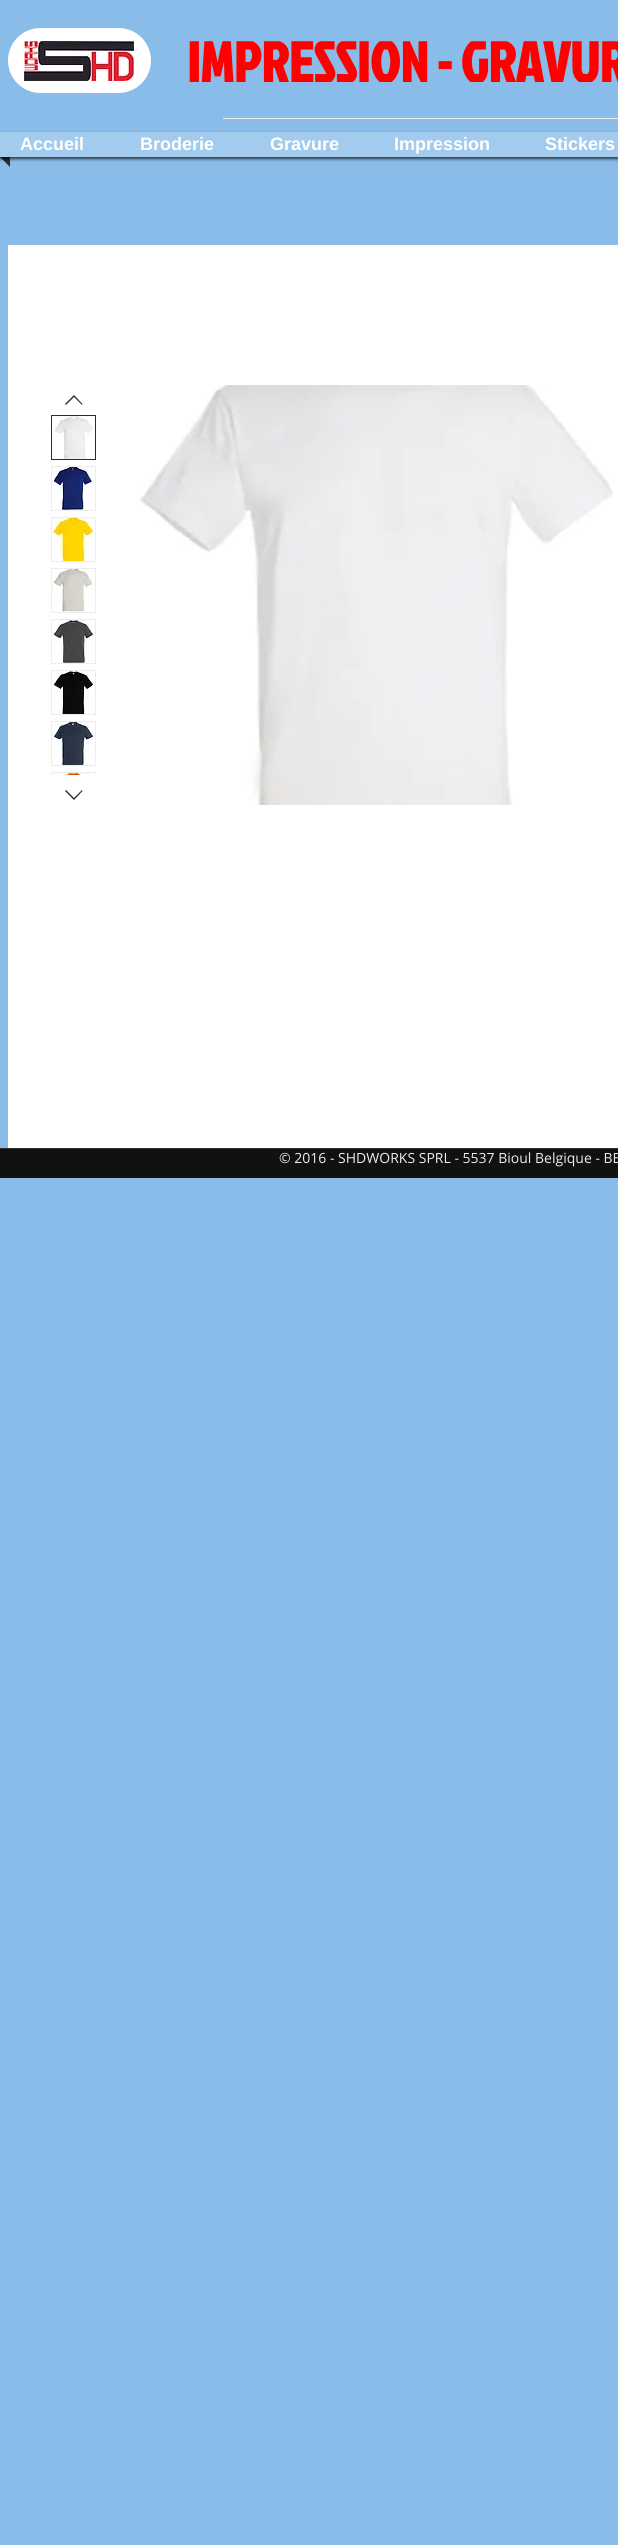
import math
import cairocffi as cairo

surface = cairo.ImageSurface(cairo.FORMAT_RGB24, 618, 2545)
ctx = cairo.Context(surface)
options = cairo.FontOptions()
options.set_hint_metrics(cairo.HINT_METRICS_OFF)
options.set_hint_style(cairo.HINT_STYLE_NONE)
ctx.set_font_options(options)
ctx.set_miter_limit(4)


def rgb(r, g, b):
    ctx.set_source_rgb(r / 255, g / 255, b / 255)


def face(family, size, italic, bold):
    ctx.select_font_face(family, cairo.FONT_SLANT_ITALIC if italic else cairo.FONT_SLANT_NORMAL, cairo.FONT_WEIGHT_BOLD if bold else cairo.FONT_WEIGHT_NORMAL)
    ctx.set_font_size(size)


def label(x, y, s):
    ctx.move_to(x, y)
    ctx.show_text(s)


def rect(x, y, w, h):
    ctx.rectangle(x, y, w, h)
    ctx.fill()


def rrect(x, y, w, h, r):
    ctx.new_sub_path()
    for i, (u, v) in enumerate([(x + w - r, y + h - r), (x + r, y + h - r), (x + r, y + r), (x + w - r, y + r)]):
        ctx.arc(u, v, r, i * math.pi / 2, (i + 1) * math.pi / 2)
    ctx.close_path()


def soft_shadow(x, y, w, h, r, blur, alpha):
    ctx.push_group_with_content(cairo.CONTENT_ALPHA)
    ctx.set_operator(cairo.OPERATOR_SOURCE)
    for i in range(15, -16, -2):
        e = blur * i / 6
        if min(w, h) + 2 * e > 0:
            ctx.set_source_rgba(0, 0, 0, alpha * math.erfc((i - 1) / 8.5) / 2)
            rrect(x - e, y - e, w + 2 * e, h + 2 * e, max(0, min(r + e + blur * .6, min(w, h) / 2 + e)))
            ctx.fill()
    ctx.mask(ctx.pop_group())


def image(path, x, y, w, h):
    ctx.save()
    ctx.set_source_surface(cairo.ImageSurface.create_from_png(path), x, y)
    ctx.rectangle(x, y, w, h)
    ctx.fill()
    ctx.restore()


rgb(137, 188, 232)
ctx.paint()
rgb(255, 255, 255)
rrect(8, 28, 143, 65, 32.5)
ctx.fill()
image('image0.png', 24, 41, 110, 40)
face('Jockey One', 56, 0, 1)
rgb(255, 0, 0)
label(187, 82, 'IMPRESSION - GRAVUR')
rgb(237, 237, 236)
rect(223, 118, 395, 1)
rgb(44, 44, 43)
ctx.new_path()
ctx.move_to(0, 157)
ctx.line_to(10, 157)
ctx.line_to(10, 167)
ctx.close_path()
ctx.fill()
rgb(0, 0, 0)
soft_shadow(0, 134, 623, 25, 0, 1.5, 0.7)
rgb(163, 203, 237)
rect(0, 132, 618, 25)
face('Liberation Sans', 18, 0, 1)
rgb(255, 255, 255)
label(20, 150, 'Accueil')
label(140, 150, 'Broderie')
label(270, 150, 'Gravure')
label(394, 150, 'Impression')
label(545, 150, 'Stickers')
rect(8, 245, 610, 903)
rgb(44, 44, 43)
ctx.set_fill_rule(cairo.FILL_RULE_EVEN_ODD)
ctx.new_path()
ctx.move_to(74, 395)
ctx.line_to(82.5, 404)
ctx.line_to(82, 405)
ctx.line_to(74, 397)
ctx.line_to(66, 405)
ctx.line_to(65, 404)
ctx.close_path()
ctx.fill()
ctx.rectangle(51.5, 415.5, 44, 44)
ctx.set_line_width(1)
ctx.stroke()
image('image1.png', 52, 416, 43, 43)
rgb(237, 237, 236)
rect(51, 466, 45, 45)
image('image2.png', 52, 467, 43, 43)
rect(51, 517, 45, 45)
image('image3.png', 52, 518, 43, 43)
rect(51, 568, 45, 45)
image('image4.png', 52, 569, 43, 43)
rect(51, 619, 45, 45)
image('image5.png', 52, 620, 43, 43)
rect(51, 670, 45, 45)
image('image6.png', 52, 671, 43, 43)
rect(51, 721, 45, 45)
image('image7.png', 52, 722, 43, 43)
rect(51, 772, 45, 3)
image('image8.png', 52, 773, 43, 2)
rgb(44, 44, 43)
ctx.new_path()
ctx.move_to(82, 790)
ctx.line_to(82.5, 791)
ctx.line_to(74, 800)
ctx.line_to(65, 791)
ctx.line_to(66, 790)
ctx.line_to(74, 798)
ctx.close_path()
ctx.fill()
image('image9.png', 139, 385, 474, 420)
rect(0, 1148, 618, 1)
rgb(18, 17, 17)
rect(0, 1149, 618, 29)
face('Open Sans', 14, 0, 0)
rgb(237, 237, 236)
label(279, 1163, '© 2016 - SHDWORKS SPRL - 5537 Bioul Belgique - BE')
surface.write_to_png('render.png')
